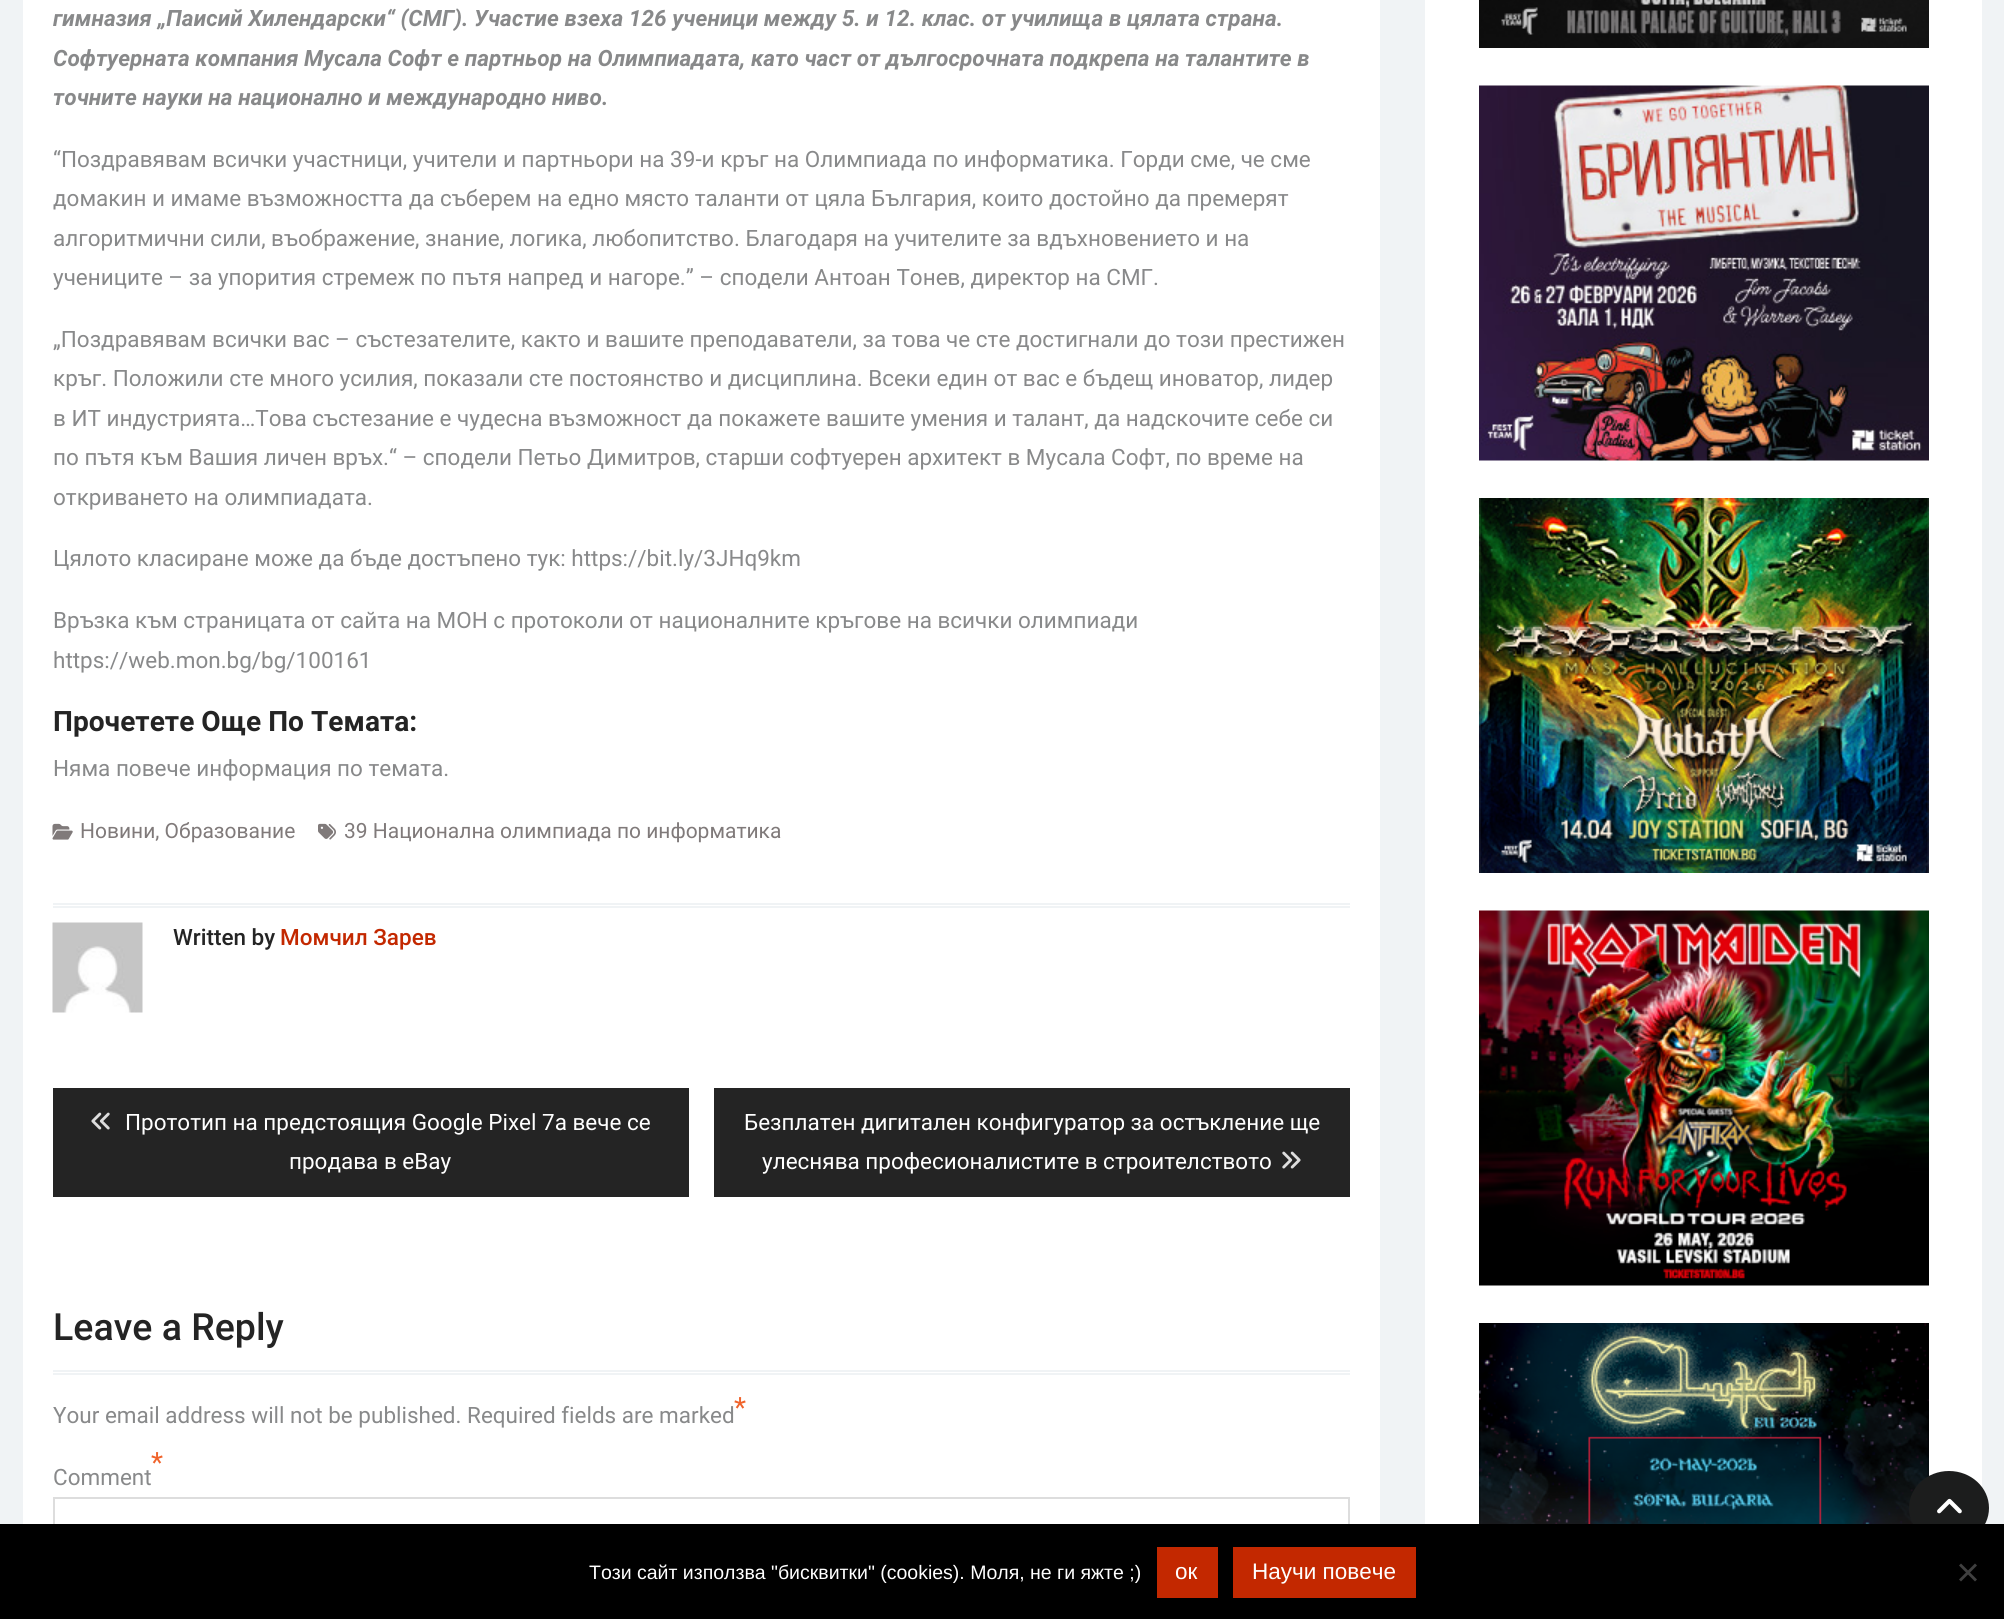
import math
import cairocffi as cairo

surface = cairo.ImageSurface(cairo.FORMAT_RGB24, 2004, 1619)
ctx = cairo.Context(surface)
options = cairo.FontOptions()
options.set_hint_metrics(cairo.HINT_METRICS_OFF)
options.set_hint_style(cairo.HINT_STYLE_NONE)
ctx.set_font_options(options)
ctx.set_miter_limit(4)


def rgb(r, g, b):
    ctx.set_source_rgb(r / 255, g / 255, b / 255)


def face(family, size, italic, bold):
    ctx.select_font_face(family, cairo.FONT_SLANT_ITALIC if italic else cairo.FONT_SLANT_NORMAL, cairo.FONT_WEIGHT_BOLD if bold else cairo.FONT_WEIGHT_NORMAL)
    ctx.set_font_size(size)


def label(x, y, s):
    ctx.move_to(x, y)
    ctx.show_text(s)


def rect(x, y, w, h):
    ctx.rectangle(x, y, w, h)
    ctx.fill()


def image(path, x, y, w, h):
    ctx.save()
    ctx.set_source_surface(cairo.ImageSurface.create_from_png(path), x, y)
    ctx.rectangle(x, y, w, h)
    ctx.fill()
    ctx.restore()


rgb(240, 243, 245)
ctx.paint()
rgb(255, 255, 255)
rect(23, 0, 1357, 1524)
rgb(240, 243, 245)
rect(53, 903, 1297, 2)
rect(53, 906, 1297, 2)
face('Roboto', 22.5, 1, 1)
rgb(136, 137, 138)
label(53, 26, 'гимназия „Паисий Хилендарски“ (СМГ). Участие взеха 126 ученици между 5. и 12. клас. от училища в цялата страна.')
label(53, 66, 'Софтуерната компания Мусала Софт е партньор на Олимпиадата, като част от дългосрочната подкрепа на талантите в')
label(53, 105, 'точните науки на национално и международно ниво.')
face('Roboto', 22.5, 0, 0)
label(53, 167, '“Поздравявам всички участници, учители и партньори на 39-и кръг на Олимпиада по информатика. Горди сме, че сме')
label(53, 206, 'домакин и имаме възможността да съберем на едно място таланти от цяла България, които достойно да премерят')
label(53, 246, 'алгоритмични сили, въображение, знание, логика, любопитство. Благодаря на учителите за вдъхновението и на')
label(53, 285, 'учениците – за упорития стремеж по пътя напред и нагоре.” – сподели Антоан Тонев, директор на СМГ.')
label(53, 347, '„Поздравявам всички вас – състезателите, както и вашите преподаватели, за това че сте достигнали до този престижен')
label(53, 386, 'кръг. Положили сте много усилия, показали сте постоянство и дисциплина. Всеки един от вас е бъдещ иноватор, лидер')
label(53, 426, 'в ИТ индустрията…Това състезание е чудесна възможност да покажете вашите умения и талант, да надскочите себе си')
label(53, 465, 'по пътя към Вашия личен връх.“ – сподели Петьо Димитров, старши софтуерен архитект в Мусала Софт, по време на')
label(53, 505, 'откриването на олимпиадата.')
label(53, 566, 'Цялото класиране може да бъде достъпено тук: https://bit.ly/3JHq9km')
label(53, 628, 'Връзка към страницата от сайта на МОН с протоколи от националните кръгове на всички олимпиади')
label(53, 668, 'https://web.mon.bg/bg/100161')
face('Roboto', 28.1, 0, 1)
rgb(36, 36, 36)
label(53, 731, 'Прочетете Още По Темата:')
face('Roboto', 22.5, 0, 0)
rgb(136, 137, 138)
label(53, 776, 'Няма повече информация по темата.')
image('image0.png', 52, 823, 21, 17)
face('Roboto', 21, 0, 0)
rgb(128, 122, 122)
label(80, 838, 'Новини, Образование')
image('image1.png', 318, 823, 18, 17)
label(344, 838, '39 Национална олимпиада по информатика')
image('image2.png', 52, 922, 91, 91)
face('Roboto Medium', 22.5, 0, 0)
rgb(36, 36, 36)
label(173, 945, 'Written by')
rgb(195, 40, 0)
label(280, 945, 'Момчил Зарев')
rgb(36, 36, 36)
rect(53, 1088, 636, 109)
image('image3.png', 91, 1112, 19, 18)
face('Roboto', 22.5, 0, 0)
rgb(255, 255, 255)
label(125, 1130, 'Прототип на предстоящия Google Pixel 7a вече се')
label(289, 1169, 'продава в eBay')
rgb(36, 36, 36)
rect(714, 1088, 636, 109)
rgb(255, 255, 255)
label(744, 1130, 'Безплатен дигитален конфигуратор за остъкление ще')
label(762, 1169, 'улеснява професионалистите в строителството')
image('image4.png', 1282, 1151, 19, 18)
rgb(240, 243, 245)
rect(53, 1370, 1297, 2)
rect(53, 1373, 1297, 2)
face('Roboto Medium', 37.5, 0, 0)
rgb(36, 36, 36)
label(53, 1340, 'Leave a Reply')
face('Roboto', 28, 0, 0)
rgb(240, 99, 43)
label(734, 1417, '*')
face('Roboto', 22.5, 0, 0)
rgb(136, 137, 138)
label(53, 1423, 'Your email address will not be published. Required fields are marked')
face('Roboto', 28, 0, 0)
rgb(240, 99, 43)
label(151, 1472, '*')
face('Roboto', 22.5, 0, 0)
rgb(136, 137, 138)
label(53, 1485, 'Comment')
ctx.rectangle(54, 1498, 1295, 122)
rgb(221, 221, 221)
ctx.stroke()
rgb(255, 255, 255)
rect(1425, 0, 557, 1524)
image('image5.png', 1479, 0, 450, 48)
image('image6.png', 1479, 85, 450, 376)
image('image7.png', 1479, 498, 450, 375)
image('image8.png', 1479, 910, 450, 376)
image('image9.png', 1479, 1323, 450, 201)
rgb(28, 29, 29)
ctx.new_path()
ctx.move_to(1949, 1471)
ctx.curve_to(1971, 1471, 1989, 1487.5, 1989, 1508)
ctx.curve_to(1989, 1528.5, 1971, 1545, 1949, 1545)
ctx.curve_to(1927, 1545, 1909, 1528.5, 1909, 1508)
ctx.curve_to(1909, 1487.5, 1927, 1471, 1949, 1471)
ctx.close_path()
ctx.fill()
image('image10.png', 1937, 1498, 25, 16)
rgb(0, 0, 0)
rect(0, 1524, 2004, 95)
face('Liberation Sans', 19.5, 0, 0)
rgb(255, 255, 255)
label(589, 1579, 'Този сайт използва "бисквитки" (cookies). Моля, не ги яжте ;)')
rgb(195, 40, 0)
rect(1157, 1547, 61, 51)
face('Liberation Sans', 22.5, 0, 0)
rgb(255, 255, 255)
label(1175, 1579, 'ок')
rgb(195, 40, 0)
rect(1233, 1547, 183, 51)
rgb(255, 255, 255)
label(1252, 1579, 'Научи повече')
rgb(64, 64, 64)
ctx.new_path()
ctx.move_to(1975, 1563.5)
ctx.line_to(1977, 1565.5)
ctx.line_to(1961, 1581.5)
ctx.line_to(1959, 1579.5)
ctx.close_path()
ctx.fill()
ctx.new_path()
ctx.move_to(1959, 1565.5)
ctx.line_to(1961, 1563.5)
ctx.line_to(1977, 1579.5)
ctx.line_to(1975, 1581.5)
ctx.close_path()
ctx.fill()
surface.write_to_png('render.png')
